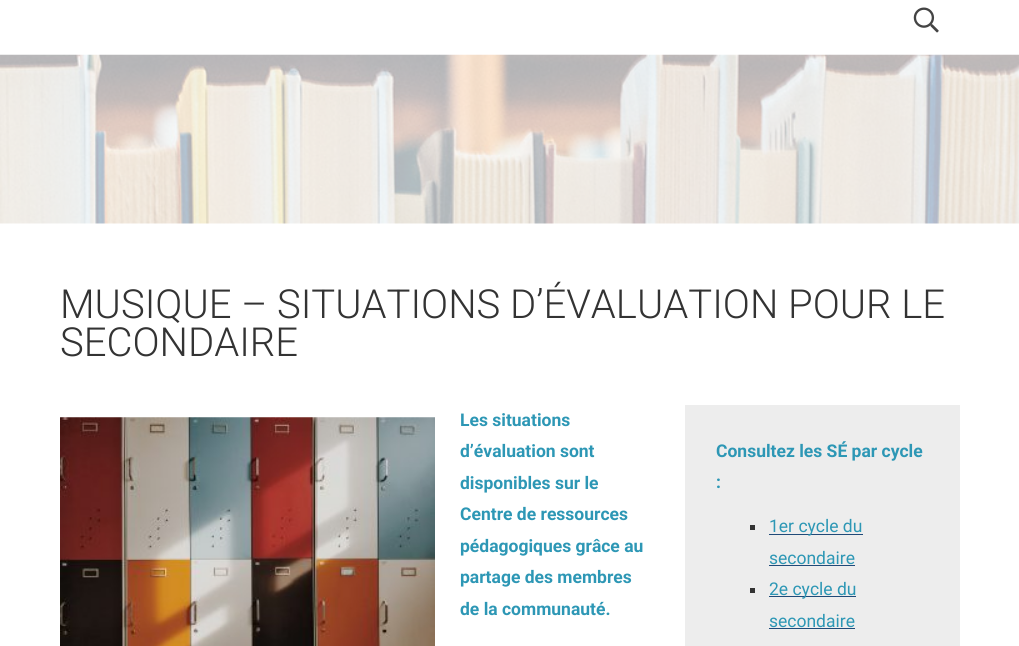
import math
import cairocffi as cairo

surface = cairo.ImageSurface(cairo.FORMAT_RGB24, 1019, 646)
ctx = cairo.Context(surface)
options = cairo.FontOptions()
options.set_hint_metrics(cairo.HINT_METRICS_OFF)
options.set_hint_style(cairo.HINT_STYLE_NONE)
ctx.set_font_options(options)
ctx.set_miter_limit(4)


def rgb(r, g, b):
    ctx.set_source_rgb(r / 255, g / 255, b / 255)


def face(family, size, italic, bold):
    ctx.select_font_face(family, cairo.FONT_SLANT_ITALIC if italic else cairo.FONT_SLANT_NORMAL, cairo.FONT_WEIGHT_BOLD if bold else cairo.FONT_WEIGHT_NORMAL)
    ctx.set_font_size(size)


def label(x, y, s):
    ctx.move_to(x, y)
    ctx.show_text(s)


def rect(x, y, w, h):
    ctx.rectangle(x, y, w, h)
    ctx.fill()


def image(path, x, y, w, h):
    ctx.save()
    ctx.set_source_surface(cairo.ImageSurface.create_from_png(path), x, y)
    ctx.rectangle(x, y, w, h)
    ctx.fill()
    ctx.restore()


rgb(255, 255, 255)
ctx.paint()
image('image0.png', 913, 7, 26, 26)
image('image1.png', 0, 54, 1019, 170)
face('Roboto Light', 40, 0, 0)
rgb(51, 51, 51)
label(60, 318, 'MUSIQUE – SITUATIONS D’ÉVALUATION POUR LE')
label(60, 356, 'SECONDAIRE')
image('image2.png', 60, 417, 375, 229)
face('Roboto', 17.5, 0, 1)
rgb(45, 151, 181)
label(460, 426, 'Les situations')
label(460, 457, 'd’évaluation sont')
label(460, 489, 'disponibles sur le')
label(460, 520, 'Centre de ressources')
label(460, 552, 'pédagogiques grâce au')
label(460, 583, 'partage des membres')
label(460, 615, 'de la communauté.')
rgb(237, 237, 237)
rect(685, 405, 275, 241)
rgb(45, 151, 181)
label(716, 457, 'Consultez les SÉ par cycle')
label(716, 488, ':')
rgb(51, 51, 51)
rect(750, 525, 5, 5)
rgb(32, 74, 120)
rect(769, 534, 94, 1)
face('Roboto', 17.5, 0, 0)
rgb(45, 151, 181)
label(769, 532, '1er cycle du')
label(769, 564, 'secondaire')
rgb(32, 74, 120)
rect(769, 565, 86, 1)
rgb(51, 51, 51)
rect(750, 588, 5, 5)
rgb(32, 74, 120)
rect(769, 596, 87, 1)
rgb(45, 151, 181)
label(769, 595, '2e cycle du')
label(769, 627, 'secondaire')
rgb(32, 74, 120)
rect(769, 628, 86, 1)
surface.write_to_png('render.png')
